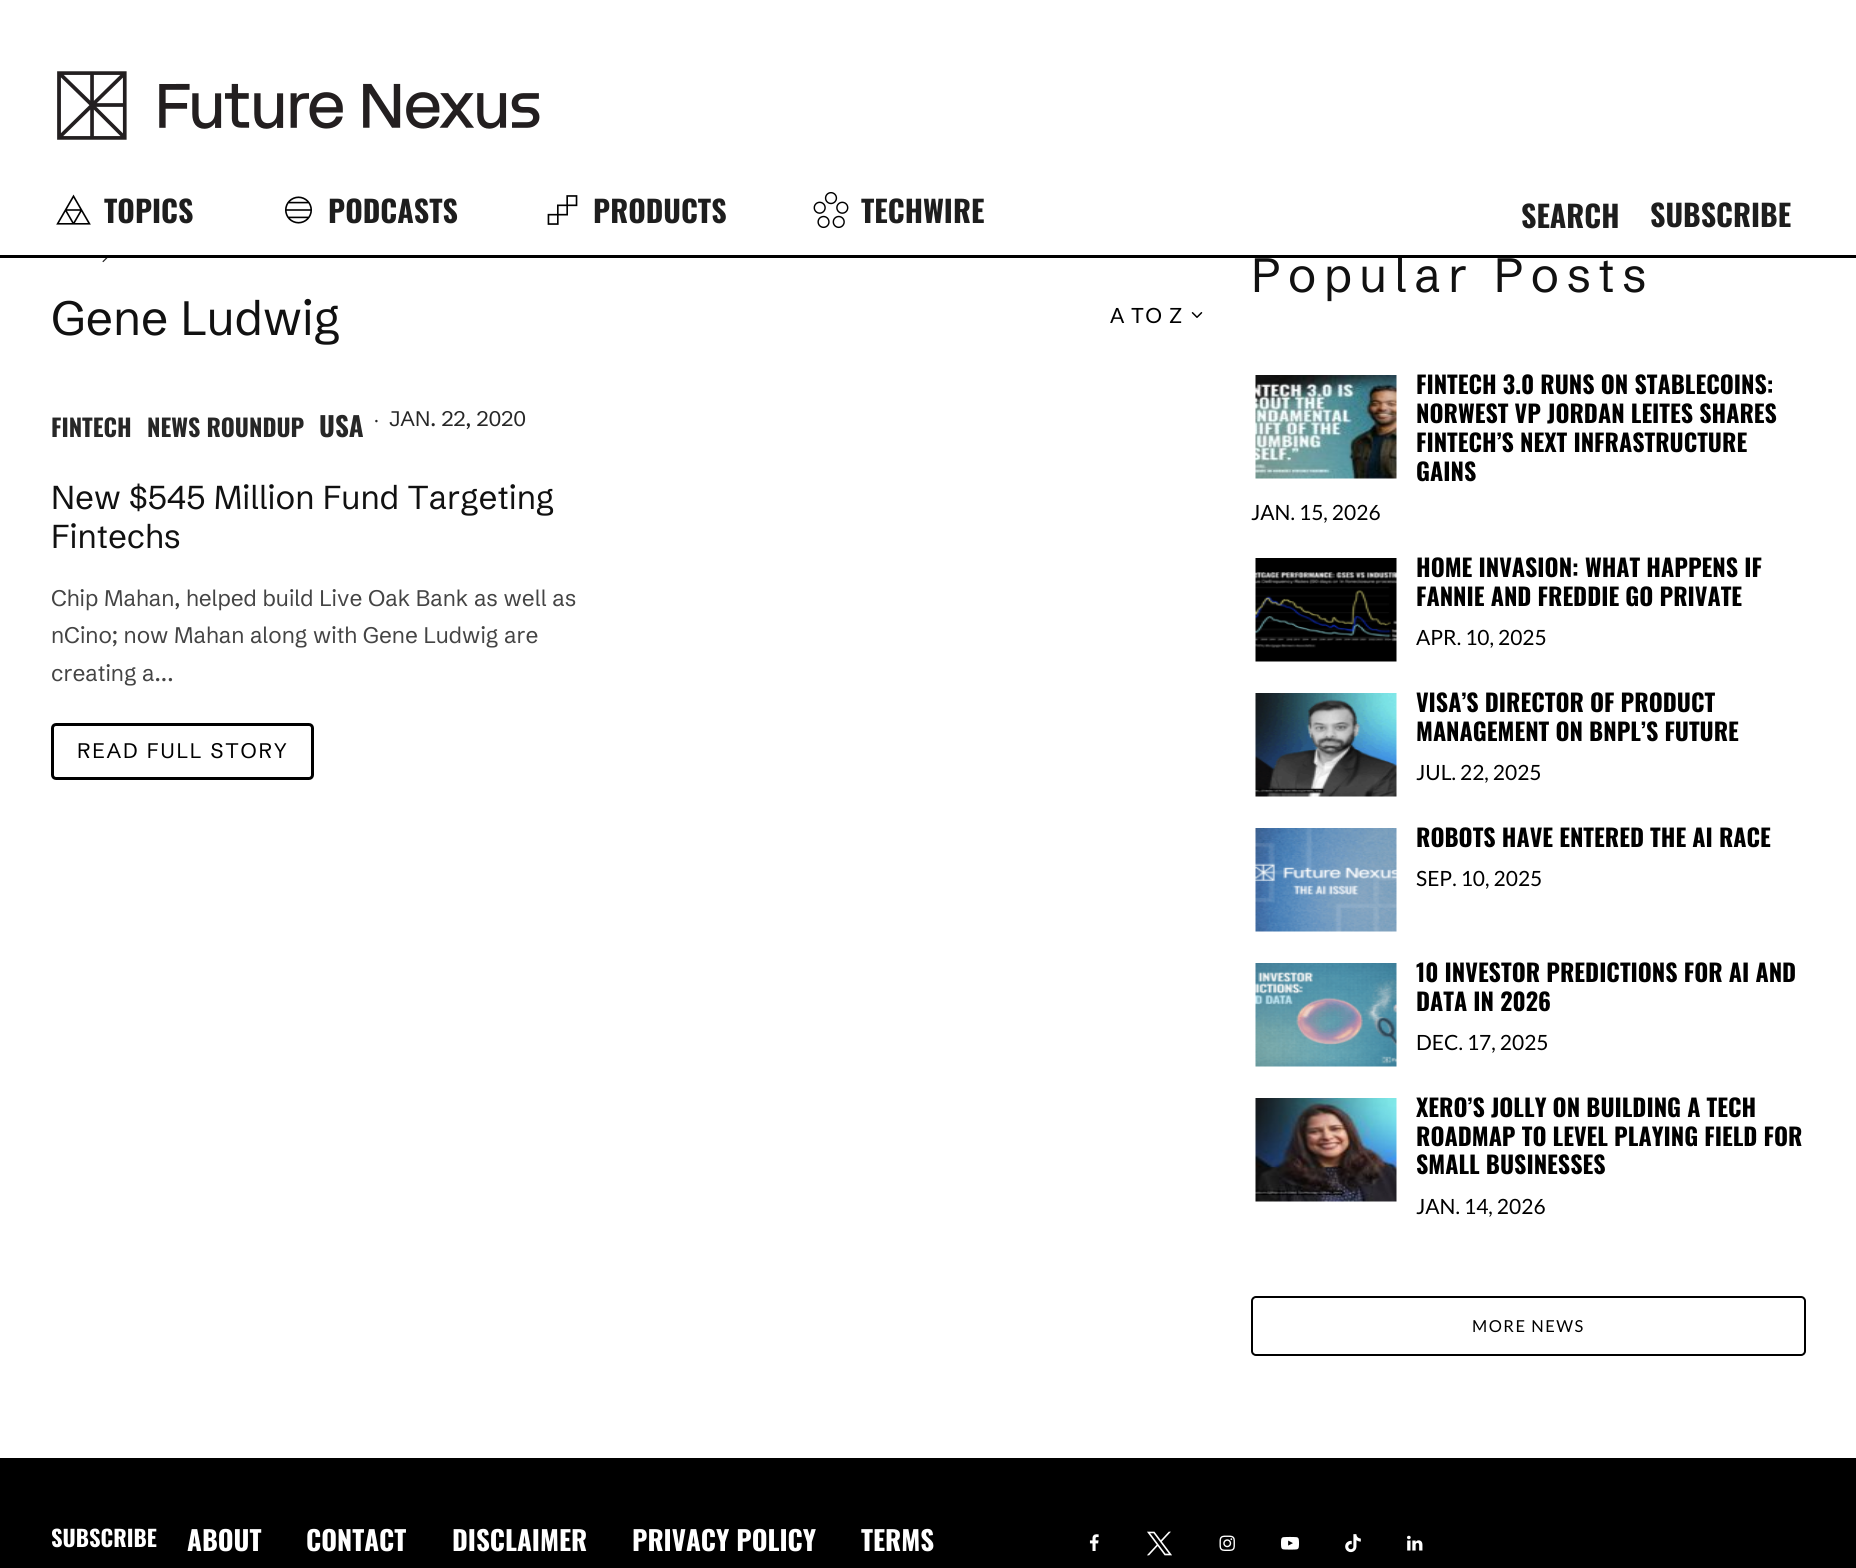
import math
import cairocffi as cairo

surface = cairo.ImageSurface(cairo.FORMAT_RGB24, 1856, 1568)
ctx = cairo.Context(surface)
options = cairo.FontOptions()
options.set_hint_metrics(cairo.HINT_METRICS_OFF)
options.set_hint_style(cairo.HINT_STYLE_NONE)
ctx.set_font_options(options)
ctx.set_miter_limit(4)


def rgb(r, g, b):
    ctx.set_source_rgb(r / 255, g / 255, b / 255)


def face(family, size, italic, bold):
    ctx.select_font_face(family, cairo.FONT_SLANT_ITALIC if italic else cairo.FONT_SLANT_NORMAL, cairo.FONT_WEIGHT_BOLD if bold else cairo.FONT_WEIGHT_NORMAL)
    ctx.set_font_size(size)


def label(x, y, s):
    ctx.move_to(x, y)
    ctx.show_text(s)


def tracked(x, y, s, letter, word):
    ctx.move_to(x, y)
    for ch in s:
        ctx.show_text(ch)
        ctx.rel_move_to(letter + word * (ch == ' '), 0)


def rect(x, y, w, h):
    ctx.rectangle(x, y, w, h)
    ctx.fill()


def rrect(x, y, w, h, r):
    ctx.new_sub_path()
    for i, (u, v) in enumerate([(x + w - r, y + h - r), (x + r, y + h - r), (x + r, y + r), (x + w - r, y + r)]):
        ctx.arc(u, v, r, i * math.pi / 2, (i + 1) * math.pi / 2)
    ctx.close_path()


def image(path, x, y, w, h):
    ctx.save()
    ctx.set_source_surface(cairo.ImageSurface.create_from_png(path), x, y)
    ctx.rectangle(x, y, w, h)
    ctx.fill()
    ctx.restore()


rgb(255, 255, 255)
ctx.paint()
face('Schibsted Grotesk', 48, 0, 0)
rgb(17, 17, 17)
tracked(1251, 292, 'Popular Posts', 7.25, 0)
rgb(0, 0, 0)
rect(0, 255, 1856, 3)
image('image0.png', 57, 71, 483, 69)
image('image1.png', 56, 194, 35, 31)
face('Oswald', 30, 0, 1)
rgb(30, 30, 30)
label(104, 223, 'TOPICS')
image('image2.png', 285, 196, 27, 28)
label(328, 223, 'PODCASTS')
image('image3.png', 547, 195, 31, 30)
label(593, 223, 'PRODUCTS')
image('image4.png', 813, 192, 36, 37)
label(861, 223, 'TECHWIRE')
label(1521, 228, 'SEARCH')
label(1650, 227, 'SUBSCRIBE')
image('image5.png', 102, 258, 6, 5)
face('Schibsted Grotesk', 48, 0, 0)
rgb(17, 17, 17)
label(51, 335, 'Gene Ludwig')
face('Lato', 21, 0, 0)
rgb(0, 0, 0)
tracked(1110, 323, 'A TO Z', 1.5, 0)
image('image6.png', 1191, 312, 12, 6)
face('Oswald', 24, 0, 1)
rgb(39, 39, 39)
label(51, 437, 'FINTECH')
label(147, 437, 'NEWS ROUNDUP')
face('Oswald', 27, 0, 1)
label(319, 437, 'USA')
face('Montserrat Medium', 18, 0, 0)
label(374, 426, '·')
face('Schibsted Grotesk', 21, 0, 0)
label(389, 426, 'JAN. 22, 2020')
face('Schibsted Grotesk', 33, 0, 0)
rgb(17, 17, 17)
label(51, 509, 'New $545 Million Fund Targeting')
label(51, 548, 'Fintechs')
face('Schibsted Grotesk', 22.5, 0, 0)
rgb(68, 68, 68)
label(51, 606, 'Chip Mahan, helped build Live Oak Bank as well as')
label(51, 643, 'nCino; now Mahan along with Gene Ludwig are')
label(51, 681, 'creating a...')
rrect(52.5, 724.5, 260, 54, 3.5)
rgb(0, 0, 0)
ctx.set_line_width(3)
ctx.stroke()
face('Schibsted Grotesk', 21, 0, 0)
tracked(77, 758, 'READ FULL STORY', 1.9, 0)
face('Oswald', 24, 0, 1)
label(1416, 394, 'FINTECH 3.0 RUNS ON STABLECOINS:')
label(1416, 423, 'NORWEST VP JORDAN LEITES SHARES')
label(1416, 452, 'FINTECH’S NEXT INFRASTRUCTURE')
label(1416, 481, 'GAINS')
face('Lato', 21, 0, 0)
label(1251, 520, 'JAN. 15, 2026')
image('image7.png', 1255, 375, 142, 104)
image('image8.png', 1255, 558, 142, 104)
face('Oswald', 24, 0, 1)
label(1416, 577, 'HOME INVASION: WHAT HAPPENS IF')
label(1416, 606, 'FANNIE AND FREDDIE GO PRIVATE')
face('Lato', 21, 0, 0)
label(1416, 645, 'APR. 10, 2025')
image('image9.png', 1255, 693, 142, 104)
face('Oswald', 24, 0, 1)
label(1416, 712, 'VISA’S DIRECTOR OF PRODUCT')
label(1416, 741, 'MANAGEMENT ON BNPL’S FUTURE')
face('Lato', 21, 0, 0)
label(1416, 780, 'JUL. 22, 2025')
image('image10.png', 1255, 828, 142, 104)
face('Oswald', 24, 0, 1)
label(1416, 847, 'ROBOTS HAVE ENTERED THE AI RACE')
face('Lato', 21, 0, 0)
label(1416, 886, 'SEP. 10, 2025')
image('image11.png', 1255, 963, 142, 104)
face('Oswald', 24, 0, 1)
label(1416, 982, '10 INVESTOR PREDICTIONS FOR AI AND')
label(1416, 1011, 'DATA IN 2026')
face('Lato', 21, 0, 0)
label(1416, 1050, 'DEC. 17, 2025')
image('image12.png', 1255, 1098, 142, 104)
face('Oswald', 24, 0, 1)
label(1416, 1117, 'XERO’S JOLLY ON BUILDING A TECH')
label(1416, 1146, 'ROADMAP TO LEVEL PLAYING FIELD FOR')
label(1416, 1174, 'SMALL BUSINESSES')
face('Lato', 21, 0, 0)
label(1416, 1214, 'JAN. 14, 2026')
rrect(1252, 1297, 553, 58, 4)
ctx.set_line_width(2)
ctx.stroke()
face('Lato', 16.5, 0, 0)
tracked(1472, 1332, 'MORE NEWS', 1.5, 0)
rect(0, 1458, 1856, 110)
face('Oswald', 22.5, 0, 1)
rgb(255, 255, 255)
label(51, 1547, 'SUBSCRIBE')
face('Oswald', 27, 0, 1)
label(187, 1551, 'ABOUT')
label(306, 1551, 'CONTACT')
label(452, 1551, 'DISCLAIMER')
label(632, 1551, 'PRIVACY POLICY')
label(861, 1551, 'TERMS')
image('image13.png', 1089, 1534, 10, 17)
image('image14.png', 1147, 1531, 25, 25)
image('image15.png', 1219, 1535, 16, 16)
image('image16.png', 1281, 1536, 18, 14)
image('image17.png', 1345, 1534, 16, 19)
image('image18.png', 1407, 1535, 16, 16)
surface.write_to_png('render.png')
